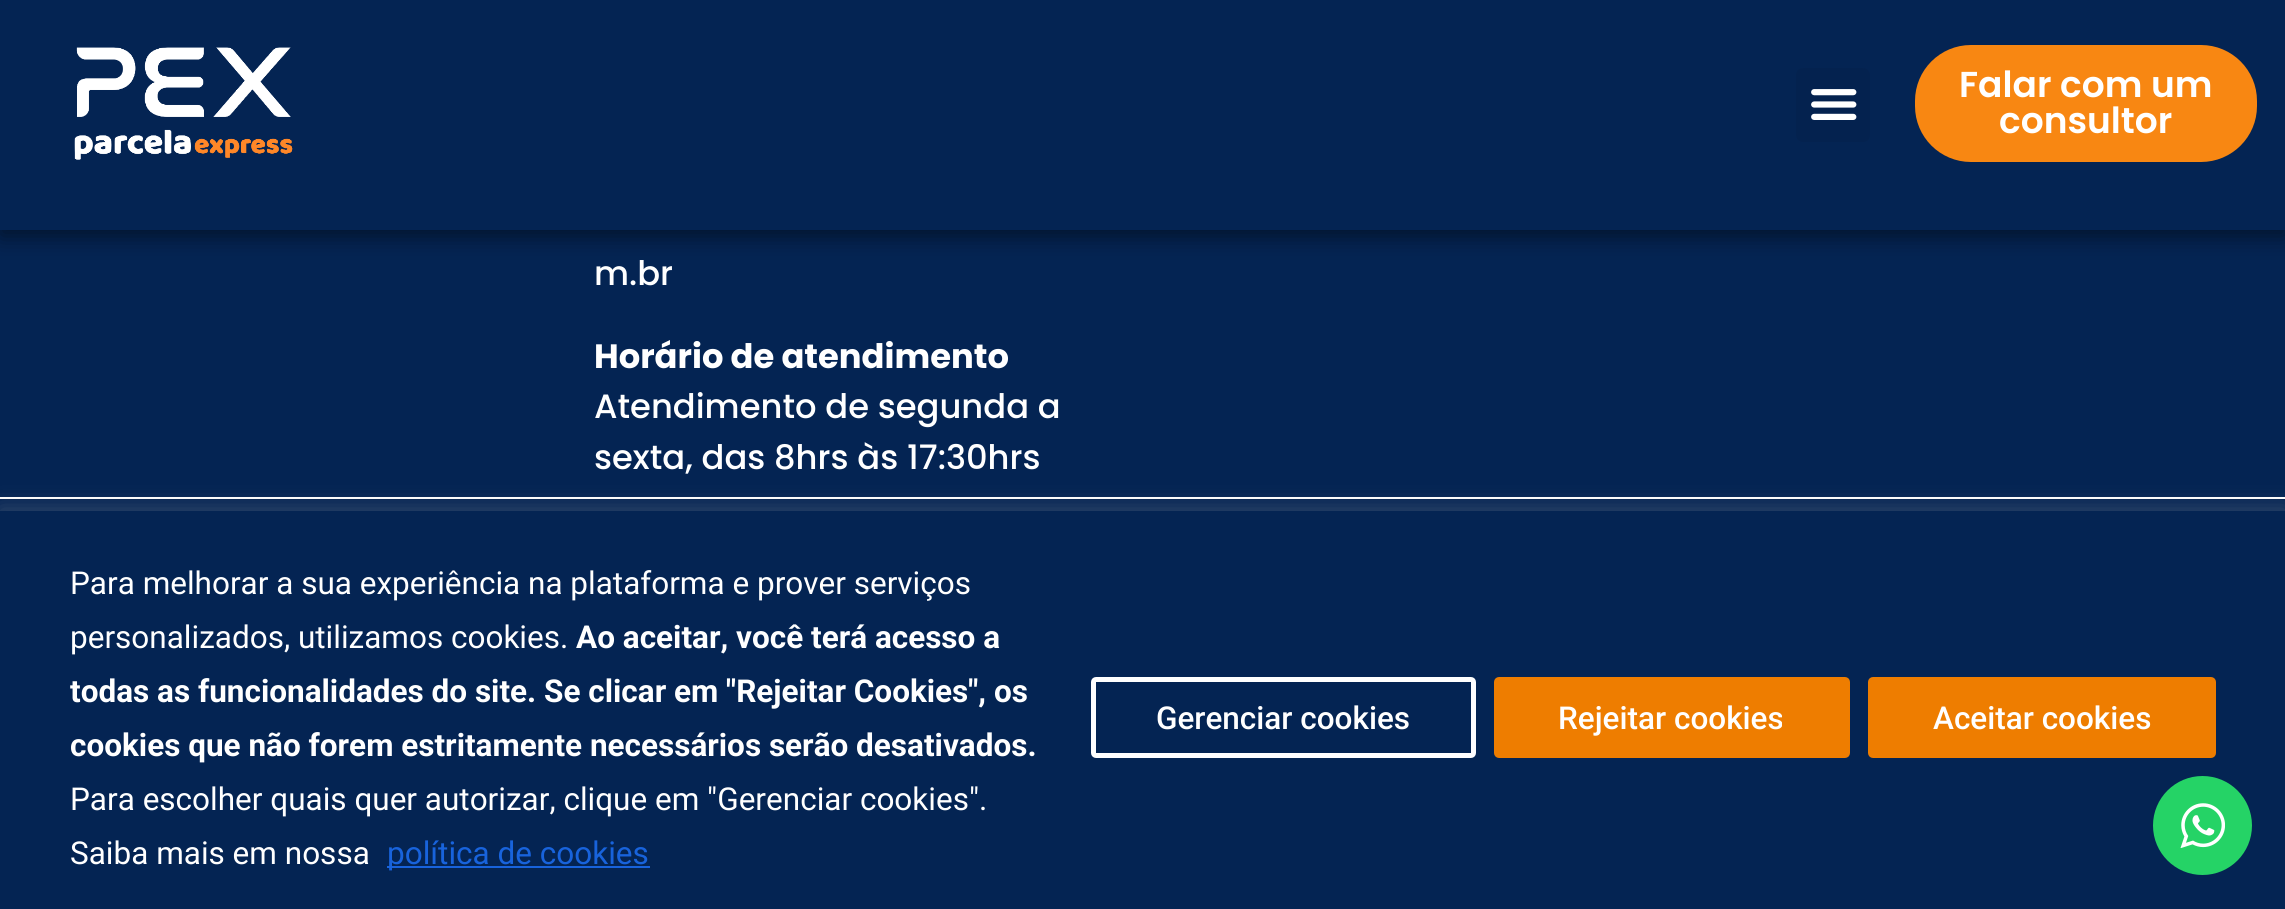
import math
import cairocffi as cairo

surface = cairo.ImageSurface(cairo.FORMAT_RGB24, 2285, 909)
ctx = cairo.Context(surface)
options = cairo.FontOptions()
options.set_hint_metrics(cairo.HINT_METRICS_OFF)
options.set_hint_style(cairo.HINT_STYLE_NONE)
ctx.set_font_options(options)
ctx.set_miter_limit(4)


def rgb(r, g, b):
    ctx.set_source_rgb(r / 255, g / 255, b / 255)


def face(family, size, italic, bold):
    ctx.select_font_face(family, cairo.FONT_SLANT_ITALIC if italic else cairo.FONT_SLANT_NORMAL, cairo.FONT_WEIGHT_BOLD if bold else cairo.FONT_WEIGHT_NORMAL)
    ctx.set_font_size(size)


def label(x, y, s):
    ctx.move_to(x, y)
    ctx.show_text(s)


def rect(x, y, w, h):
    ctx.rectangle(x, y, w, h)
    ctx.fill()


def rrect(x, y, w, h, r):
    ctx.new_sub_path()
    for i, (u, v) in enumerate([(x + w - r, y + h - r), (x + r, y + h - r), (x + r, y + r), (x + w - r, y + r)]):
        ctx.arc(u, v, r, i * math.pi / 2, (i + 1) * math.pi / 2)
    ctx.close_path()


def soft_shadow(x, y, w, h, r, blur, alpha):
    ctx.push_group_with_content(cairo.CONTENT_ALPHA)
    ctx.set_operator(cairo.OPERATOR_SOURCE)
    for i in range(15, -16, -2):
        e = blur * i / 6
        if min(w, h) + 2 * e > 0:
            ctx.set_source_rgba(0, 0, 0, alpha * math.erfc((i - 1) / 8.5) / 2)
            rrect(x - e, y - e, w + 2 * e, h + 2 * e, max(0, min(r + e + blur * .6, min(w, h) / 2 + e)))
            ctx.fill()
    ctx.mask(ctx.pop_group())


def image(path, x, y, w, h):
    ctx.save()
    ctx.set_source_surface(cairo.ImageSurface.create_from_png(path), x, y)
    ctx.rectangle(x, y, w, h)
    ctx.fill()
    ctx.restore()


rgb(4, 36, 83)
ctx.paint()
rgb(0, 0, 0)
soft_shadow(0, 7, 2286, 229, 0, 11, 0.5)
rgb(4, 36, 83)
rect(0, 0, 2285, 230)
image('image0.png', 74, 47, 219, 113)
rgb(4, 34, 79)
rrect(1796, 68, 74, 74, 7)
ctx.fill()
image('image1.png', 1811, 89, 46, 31)
rgb(248, 135, 18)
rrect(1915, 45, 342, 117, 56)
ctx.fill()
face('Poppins SemiBold', 36, 0, 0)
rgb(255, 255, 255)
label(1959, 97, 'Falar com um')
label(1999, 133, 'consultor')
face('Poppins Medium', 33.75, 0, 0)
label(594, 285, 'm.br')
face('Poppins', 33.75, 0, 1)
label(594, 368, 'Horário de atendimento')
face('Poppins Medium', 33.75, 0, 0)
label(594, 418, 'Atendimento de segunda a')
label(594, 469, 'sexta, das 8hrs às 17:30hrs')
rect(0, 497, 2285, 2)
rgb(172, 171, 171)
soft_shadow(0, 509, 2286, 398, 0, 11, 0.3)
rgb(4, 36, 83)
rect(0, 511, 2285, 398)
face('Roboto', 31.5, 0, 0)
rgb(255, 255, 255)
label(70, 594, 'Para melhorar a sua experiência na plataforma e prover serviços')
label(70, 648, 'personalizados, utilizamos cookies.')
face('Roboto', 31.5, 0, 1)
label(576, 648, 'Ao aceitar, você terá acesso a')
label(70, 702, 'todas as funcionalidades do site. Se clicar em "Rejeitar Cookies", os')
label(70, 756, 'cookies que não forem estritamente necessários serão desativados.')
face('Roboto', 31.5, 0, 0)
label(70, 810, 'Para escolher quais quer autorizar, clique em "Gerenciar cookies".')
label(70, 864, 'Saiba mais em nossa')
rgb(24, 99, 220)
rect(387, 866, 263, 2)
label(387, 864, 'política de cookies')
rrect(1093.5, 679.5, 380, 76, 2.5)
rgb(255, 255, 255)
ctx.set_line_width(5)
ctx.stroke()
face('Roboto Medium', 31.5, 0, 0)
label(1156, 729, 'Gerenciar cookies')
rgb(238, 125, 0)
rrect(1496.5, 679.5, 351, 76, 2.5)
ctx.fill_preserve()
ctx.stroke()
rgb(255, 255, 255)
label(1558, 729, 'Rejeitar cookies')
rgb(238, 125, 0)
rrect(1870.5, 679.5, 343, 76, 2.5)
ctx.fill_preserve()
ctx.stroke()
rgb(255, 255, 255)
label(1933, 729, 'Aceitar cookies')
rgb(37, 211, 102)
ctx.new_path()
ctx.arc(2202.5, 825.5, 49.5, 0, 2 * math.pi)
ctx.fill()
image('image2.png', 2180, 803, 45, 45)
surface.write_to_png('render.png')
